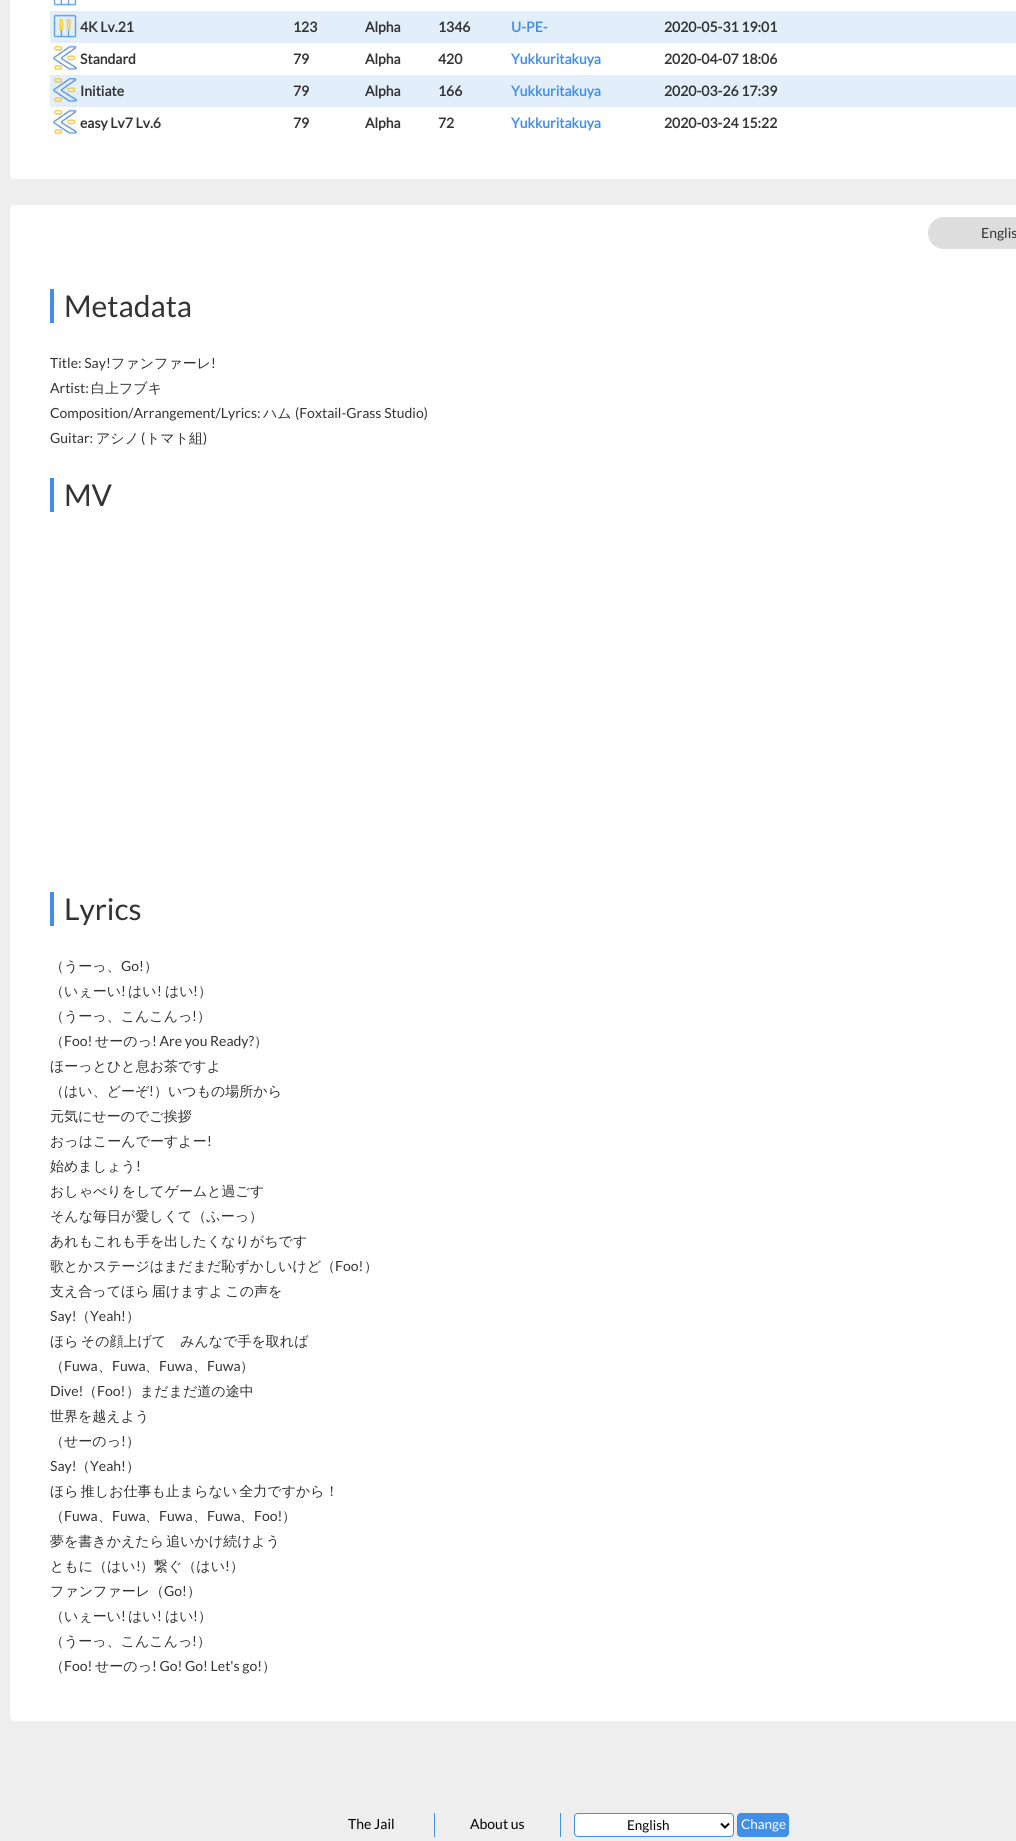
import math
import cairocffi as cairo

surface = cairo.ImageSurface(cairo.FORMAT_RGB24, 1016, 1841)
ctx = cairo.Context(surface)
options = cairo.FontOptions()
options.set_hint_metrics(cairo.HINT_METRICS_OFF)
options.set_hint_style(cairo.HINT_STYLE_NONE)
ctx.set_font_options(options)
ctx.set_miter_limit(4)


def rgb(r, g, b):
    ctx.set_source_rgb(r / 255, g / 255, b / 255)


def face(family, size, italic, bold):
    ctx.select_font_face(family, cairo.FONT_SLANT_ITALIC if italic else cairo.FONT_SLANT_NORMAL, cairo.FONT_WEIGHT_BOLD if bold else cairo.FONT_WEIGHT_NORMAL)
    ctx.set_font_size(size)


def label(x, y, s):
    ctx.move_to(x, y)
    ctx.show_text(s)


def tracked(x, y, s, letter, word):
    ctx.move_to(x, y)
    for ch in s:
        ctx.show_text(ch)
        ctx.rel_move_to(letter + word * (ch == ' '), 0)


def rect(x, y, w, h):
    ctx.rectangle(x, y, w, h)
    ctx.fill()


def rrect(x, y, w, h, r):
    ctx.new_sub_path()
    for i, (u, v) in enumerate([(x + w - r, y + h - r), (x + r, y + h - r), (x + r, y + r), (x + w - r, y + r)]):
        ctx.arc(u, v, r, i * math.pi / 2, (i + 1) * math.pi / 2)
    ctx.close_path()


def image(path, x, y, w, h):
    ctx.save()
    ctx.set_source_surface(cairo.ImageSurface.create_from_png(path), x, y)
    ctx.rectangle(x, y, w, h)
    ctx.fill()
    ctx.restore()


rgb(238, 238, 238)
ctx.paint()
rgb(255, 255, 255)
rrect(10, -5, 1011, 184, 5)
ctx.fill()
image('image0.png', 53, 0, 24, 6)
rgb(227, 238, 251)
rect(50, 11, 966, 32)
image('image1.png', 53, 14, 24, 24)
face('Lato', 14, 0, 1)
rgb(51, 51, 51)
label(80, 32, '4K Lv.21')
label(293, 32, '123')
label(365, 32, 'Alpha')
label(438, 32, '1346')
rgb(65, 144, 231)
label(511, 32, 'U-PE-')
rgb(51, 51, 51)
label(664, 32, '2020-05-31 19:01')
image('image2.png', 52, 45, 26, 26)
label(80, 64, 'Standard')
label(293, 64, '79')
label(365, 64, 'Alpha')
label(438, 64, '420')
rgb(65, 144, 231)
label(511, 64, 'Yukkuritakuya')
rgb(51, 51, 51)
label(664, 64, '2020-04-07 18:06')
rgb(227, 238, 251)
rect(50, 75, 966, 32)
image('image3.png', 52, 77, 26, 26)
rgb(51, 51, 51)
label(80, 96, 'Initiate')
label(293, 96, '79')
label(365, 96, 'Alpha')
label(438, 96, '166')
rgb(65, 144, 231)
label(511, 96, 'Yukkuritakuya')
rgb(51, 51, 51)
label(664, 96, '2020-03-26 17:39')
image('image2.png', 52, 109, 26, 26)
label(80, 128, 'easy Lv7 Lv.6')
label(293, 128, '79')
label(365, 128, 'Alpha')
label(438, 128, '72')
rgb(65, 144, 231)
label(511, 128, 'Yukkuritakuya')
rgb(51, 51, 51)
label(664, 128, '2020-03-24 15:22')
rgb(255, 255, 255)
rrect(10, 205, 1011, 1516, 5)
ctx.fill()
rgb(221, 221, 221)
rrect(928, 217, 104, 32, 16)
ctx.fill()
face('Lato', 14, 0, 0)
rgb(51, 51, 51)
label(981, 238, 'Englis')
rgb(65, 144, 231)
rect(50, 289, 4, 34)
face('Lato', 30, 0, 0)
rgb(51, 51, 51)
label(64, 317, 'Metadata')
face('Lato', 14, 0, 0)
label(50, 368, 'Title: Say!')
face('WenQuanYi Zen Hei Medium', 14, 0, 0)
label(111, 368, 'ファンファーレ')
face('Lato', 14, 0, 0)
label(211, 368, '!')
label(50, 393, 'Artist:')
face('WenQuanYi Zen Hei Medium', 14, 0, 0)
label(91, 393, '白上フブキ')
face('Lato', 14, 0, 0)
label(50, 418, 'Composition/Arrangement/Lyrics:')
face('WenQuanYi Zen Hei Medium', 14, 0, 0)
label(263, 418, 'ハム')
face('Lato', 14, 0, 0)
label(295, 418, '(Foxtail-Grass Studio)')
label(50, 443, 'Guitar:')
face('WenQuanYi Zen Hei Medium', 14, 0, 0)
label(96, 443, 'アシノ')
face('Lato', 14, 0, 0)
label(141, 443, '(')
face('WenQuanYi Zen Hei Medium', 14, 0, 0)
label(146, 443, 'トマト組')
face('Lato', 14, 0, 0)
label(203, 443, ')')
rgb(65, 144, 231)
rect(50, 478, 4, 34)
face('Lato', 30, 0, 0)
rgb(51, 51, 51)
label(64, 506, 'MV')
rgb(65, 144, 231)
rect(50, 892, 4, 34)
rgb(51, 51, 51)
label(64, 920, 'Lyrics')
face('WenQuanYi Zen Hei Medium', 14, 0, 0)
label(50, 971, '（うーっ、')
face('Lato', 14, 0, 0)
label(121, 971, 'Go!')
face('WenQuanYi Zen Hei Medium', 14, 0, 0)
label(144, 971, '）')
label(50, 996, '（いぇーい')
face('Lato', 14, 0, 0)
label(121, 996, '!')
face('WenQuanYi Zen Hei Medium', 14, 0, 0)
label(128, 996, 'はい')
face('Lato', 14, 0, 0)
label(157, 996, '!')
face('WenQuanYi Zen Hei Medium', 14, 0, 0)
label(165, 996, 'はい')
face('Lato', 14, 0, 0)
label(193, 996, '!')
face('WenQuanYi Zen Hei Medium', 14, 0, 0)
label(198, 996, '）')
label(50, 1021, '（うーっ、こんこんっ')
face('Lato', 14, 0, 0)
label(192, 1021, '!')
face('WenQuanYi Zen Hei Medium', 14, 0, 0)
label(197, 1021, '）')
label(50, 1046, '（')
face('Lato', 14, 0, 0)
label(64, 1046, 'Foo!')
face('WenQuanYi Zen Hei Medium', 14, 0, 0)
label(95, 1046, 'せーのっ')
face('Lato', 14, 0, 0)
label(152, 1046, '! Are you Ready?')
face('WenQuanYi Zen Hei Medium', 14, 0, 0)
label(254, 1046, '）')
label(50, 1071, 'ほーっとひと息お茶ですよ')
label(50, 1096, '（はい、どーぞ')
face('Lato', 14, 0, 0)
label(149, 1096, '!')
face('WenQuanYi Zen Hei Medium', 14, 0, 0)
label(154, 1096, '）いつもの場所から')
label(50, 1121, '元気にせーのでご挨拶')
label(50, 1146, 'おっはこーんでーすよー')
face('Lato', 14, 0, 0)
label(207, 1146, '!')
face('WenQuanYi Zen Hei Medium', 14, 0, 0)
label(50, 1171, '始めましょう')
face('Lato', 14, 0, 0)
label(136, 1171, '!')
face('WenQuanYi Zen Hei Medium', 14, 0, 0)
label(50, 1196, 'おしゃべりをしてゲームと過ごす')
label(50, 1221, 'そんな毎日が愛しくて（ふーっ）')
label(50, 1246, 'あれもこれも手を出したくなりがちです')
label(50, 1271, '歌とかステージはまだまだ恥ずかしいけど（')
face('Lato', 14, 0, 0)
label(335, 1271, 'Foo!')
face('WenQuanYi Zen Hei Medium', 14, 0, 0)
label(364, 1271, '）')
tracked(50, 1296, '支え合ってほら 届けますよ この声を', 0, -2)
face('Lato', 14, 0, 0)
label(50, 1321, 'Say!')
face('WenQuanYi Zen Hei Medium', 14, 0, 0)
label(76, 1321, '（')
face('Lato', 14, 0, 0)
label(90, 1321, 'Yeah!')
face('WenQuanYi Zen Hei Medium', 14, 0, 0)
label(126, 1321, '）')
tracked(50, 1346, 'ほら その顔上げて　みんなで手を取れば', 0, -2)
label(50, 1371, '（')
face('Lato', 14, 0, 0)
label(64, 1371, 'Fuwa')
face('WenQuanYi Zen Hei Medium', 14, 0, 0)
label(98, 1371, '、')
face('Lato', 14, 0, 0)
label(112, 1371, 'Fuwa')
face('WenQuanYi Zen Hei Medium', 14, 0, 0)
label(145, 1371, '、')
face('Lato', 14, 0, 0)
label(159, 1371, 'Fuwa')
face('WenQuanYi Zen Hei Medium', 14, 0, 0)
label(193, 1371, '、')
face('Lato', 14, 0, 0)
label(207, 1371, 'Fuwa')
face('WenQuanYi Zen Hei Medium', 14, 0, 0)
label(240, 1371, '）')
face('Lato', 14, 0, 0)
label(50, 1396, 'Dive!')
face('WenQuanYi Zen Hei Medium', 14, 0, 0)
label(83, 1396, '（')
face('Lato', 14, 0, 0)
label(97, 1396, 'Foo!')
face('WenQuanYi Zen Hei Medium', 14, 0, 0)
label(126, 1396, '）まだまだ道の途中')
label(50, 1421, '世界を越えよう')
label(50, 1446, '（せーのっ')
face('Lato', 14, 0, 0)
label(121, 1446, '!')
face('WenQuanYi Zen Hei Medium', 14, 0, 0)
label(126, 1446, '）')
face('Lato', 14, 0, 0)
label(50, 1471, 'Say!')
face('WenQuanYi Zen Hei Medium', 14, 0, 0)
label(76, 1471, '（')
face('Lato', 14, 0, 0)
label(90, 1471, 'Yeah!')
face('WenQuanYi Zen Hei Medium', 14, 0, 0)
label(126, 1471, '）')
tracked(50, 1496, 'ほら 推しお仕事も止まらない 全力ですから！', 0, -2)
label(50, 1521, '（')
face('Lato', 14, 0, 0)
label(64, 1521, 'Fuwa')
face('WenQuanYi Zen Hei Medium', 14, 0, 0)
label(98, 1521, '、')
face('Lato', 14, 0, 0)
label(112, 1521, 'Fuwa')
face('WenQuanYi Zen Hei Medium', 14, 0, 0)
label(145, 1521, '、')
face('Lato', 14, 0, 0)
label(159, 1521, 'Fuwa')
face('WenQuanYi Zen Hei Medium', 14, 0, 0)
label(193, 1521, '、')
face('Lato', 14, 0, 0)
label(207, 1521, 'Fuwa')
face('WenQuanYi Zen Hei Medium', 14, 0, 0)
label(240, 1521, '、')
face('Lato', 14, 0, 0)
label(254, 1521, 'Foo!')
face('WenQuanYi Zen Hei Medium', 14, 0, 0)
label(282, 1521, '）')
tracked(50, 1546, '夢を書きかえたら 追いかけ続けよう', 0, -2)
label(50, 1571, 'ともに（はい')
face('Lato', 14, 0, 0)
label(136, 1571, '!')
face('WenQuanYi Zen Hei Medium', 14, 0, 0)
label(140, 1571, '）繋ぐ（はい')
face('Lato', 14, 0, 0)
label(225, 1571, '!')
face('WenQuanYi Zen Hei Medium', 14, 0, 0)
label(230, 1571, '）')
label(50, 1596, 'ファンファーレ（')
face('Lato', 14, 0, 0)
label(164, 1596, 'Go!')
face('WenQuanYi Zen Hei Medium', 14, 0, 0)
label(187, 1596, '）')
label(50, 1621, '（いぇーい')
face('Lato', 14, 0, 0)
label(121, 1621, '!')
face('WenQuanYi Zen Hei Medium', 14, 0, 0)
label(128, 1621, 'はい')
face('Lato', 14, 0, 0)
label(157, 1621, '!')
face('WenQuanYi Zen Hei Medium', 14, 0, 0)
label(165, 1621, 'はい')
face('Lato', 14, 0, 0)
label(193, 1621, '!')
face('WenQuanYi Zen Hei Medium', 14, 0, 0)
label(198, 1621, '）')
label(50, 1646, '（うーっ、こんこんっ')
face('Lato', 14, 0, 0)
label(192, 1646, '!')
face('WenQuanYi Zen Hei Medium', 14, 0, 0)
label(197, 1646, '）')
label(50, 1671, '（')
face('Lato', 14, 0, 0)
label(64, 1671, 'Foo!')
face('WenQuanYi Zen Hei Medium', 14, 0, 0)
label(95, 1671, 'せーのっ')
face('Lato', 14, 0, 0)
label(152, 1671, '! Go! Go! Let\'s go!')
face('WenQuanYi Zen Hei Medium', 14, 0, 0)
label(262, 1671, '）')
face('Lato', 14, 0, 0)
rgb(0, 0, 0)
label(348, 1829, 'The Jail')
rgb(65, 144, 231)
rect(434, 1813, 1, 24)
rgb(0, 0, 0)
label(470, 1829, 'About us')
rgb(65, 144, 231)
rect(560, 1813, 1, 24)
rgb(255, 255, 255)
rrect(574.5, 1813.5, 159, 23, 3.5)
ctx.fill_preserve()
rgb(65, 144, 231)
ctx.set_line_width(1)
ctx.stroke()
ctx.new_path()
ctx.move_to(721, 1823.5)
ctx.line_to(725, 1827.5)
ctx.line_to(729, 1823.5)
rgb(0, 0, 0)
ctx.set_line_width(2)
ctx.stroke()
face('Lato', 13.5, 0, 0)
label(627, 1830, 'English')
rgb(65, 144, 231)
rrect(737, 1813, 52, 24, 4)
ctx.fill()
rgb(255, 255, 255)
label(741, 1829, 'Change')
surface.write_to_png('render.png')
